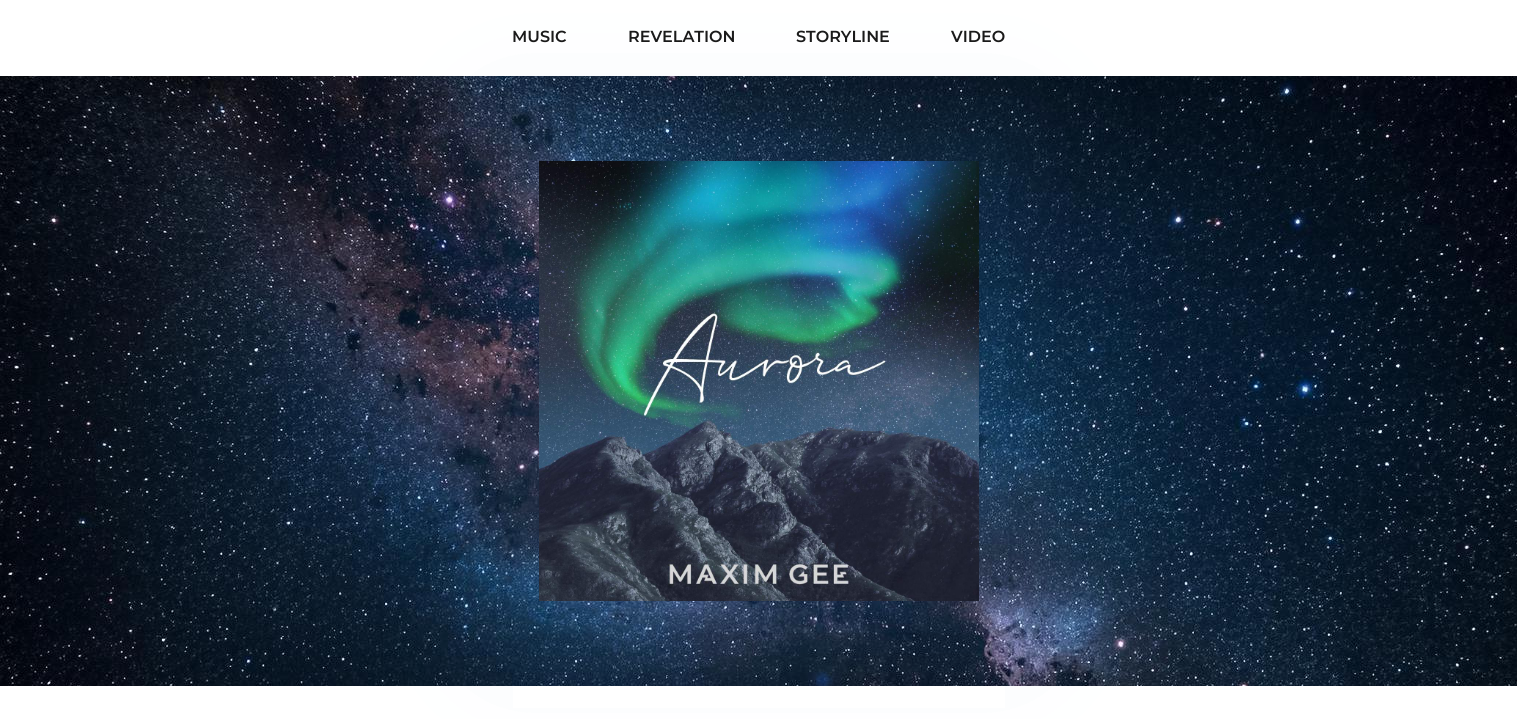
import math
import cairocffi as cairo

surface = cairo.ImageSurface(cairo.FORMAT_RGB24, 1517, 719)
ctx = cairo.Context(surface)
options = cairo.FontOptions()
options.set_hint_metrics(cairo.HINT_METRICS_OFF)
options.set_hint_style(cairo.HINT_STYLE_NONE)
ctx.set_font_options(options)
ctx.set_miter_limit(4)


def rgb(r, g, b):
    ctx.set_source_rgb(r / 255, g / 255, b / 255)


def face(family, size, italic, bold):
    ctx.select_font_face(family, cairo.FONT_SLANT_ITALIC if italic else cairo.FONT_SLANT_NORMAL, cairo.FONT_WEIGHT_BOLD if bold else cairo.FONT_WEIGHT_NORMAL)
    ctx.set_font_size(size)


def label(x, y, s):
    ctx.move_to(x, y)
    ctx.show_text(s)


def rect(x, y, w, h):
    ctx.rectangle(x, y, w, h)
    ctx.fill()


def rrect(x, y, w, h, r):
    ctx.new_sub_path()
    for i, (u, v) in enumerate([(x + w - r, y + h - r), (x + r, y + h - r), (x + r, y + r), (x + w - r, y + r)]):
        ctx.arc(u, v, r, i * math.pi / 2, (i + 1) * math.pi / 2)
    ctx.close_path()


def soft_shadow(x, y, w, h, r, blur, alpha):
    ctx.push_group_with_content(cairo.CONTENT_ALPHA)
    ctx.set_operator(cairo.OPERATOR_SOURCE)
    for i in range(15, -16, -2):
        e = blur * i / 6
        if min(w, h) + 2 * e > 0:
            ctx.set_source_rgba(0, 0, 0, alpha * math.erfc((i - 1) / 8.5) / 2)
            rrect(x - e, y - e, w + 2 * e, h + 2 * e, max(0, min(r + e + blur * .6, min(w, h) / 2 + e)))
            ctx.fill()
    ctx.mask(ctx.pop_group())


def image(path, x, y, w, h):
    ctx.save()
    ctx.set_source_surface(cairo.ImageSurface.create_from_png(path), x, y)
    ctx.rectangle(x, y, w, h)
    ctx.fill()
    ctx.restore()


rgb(255, 255, 255)
ctx.paint()
image('image0.png', 0, 76, 1517, 610)
rgb(71, 138, 201)
soft_shadow(499, 123, 520, 520, 0, 60, 0.1)
image('image1.png', 539, 161, 440, 440)
face('Montserrat SemiBold', 16, 0, 0)
rgb(26, 26, 26)
label(512, 42, 'MUSIC')
label(628, 42, 'REVELATION')
label(796, 42, 'STORYLINE')
label(951, 42, 'VIDEO')
rgb(255, 255, 255)
rect(513, 686, 492, 22)
surface.write_to_png('render.png')
